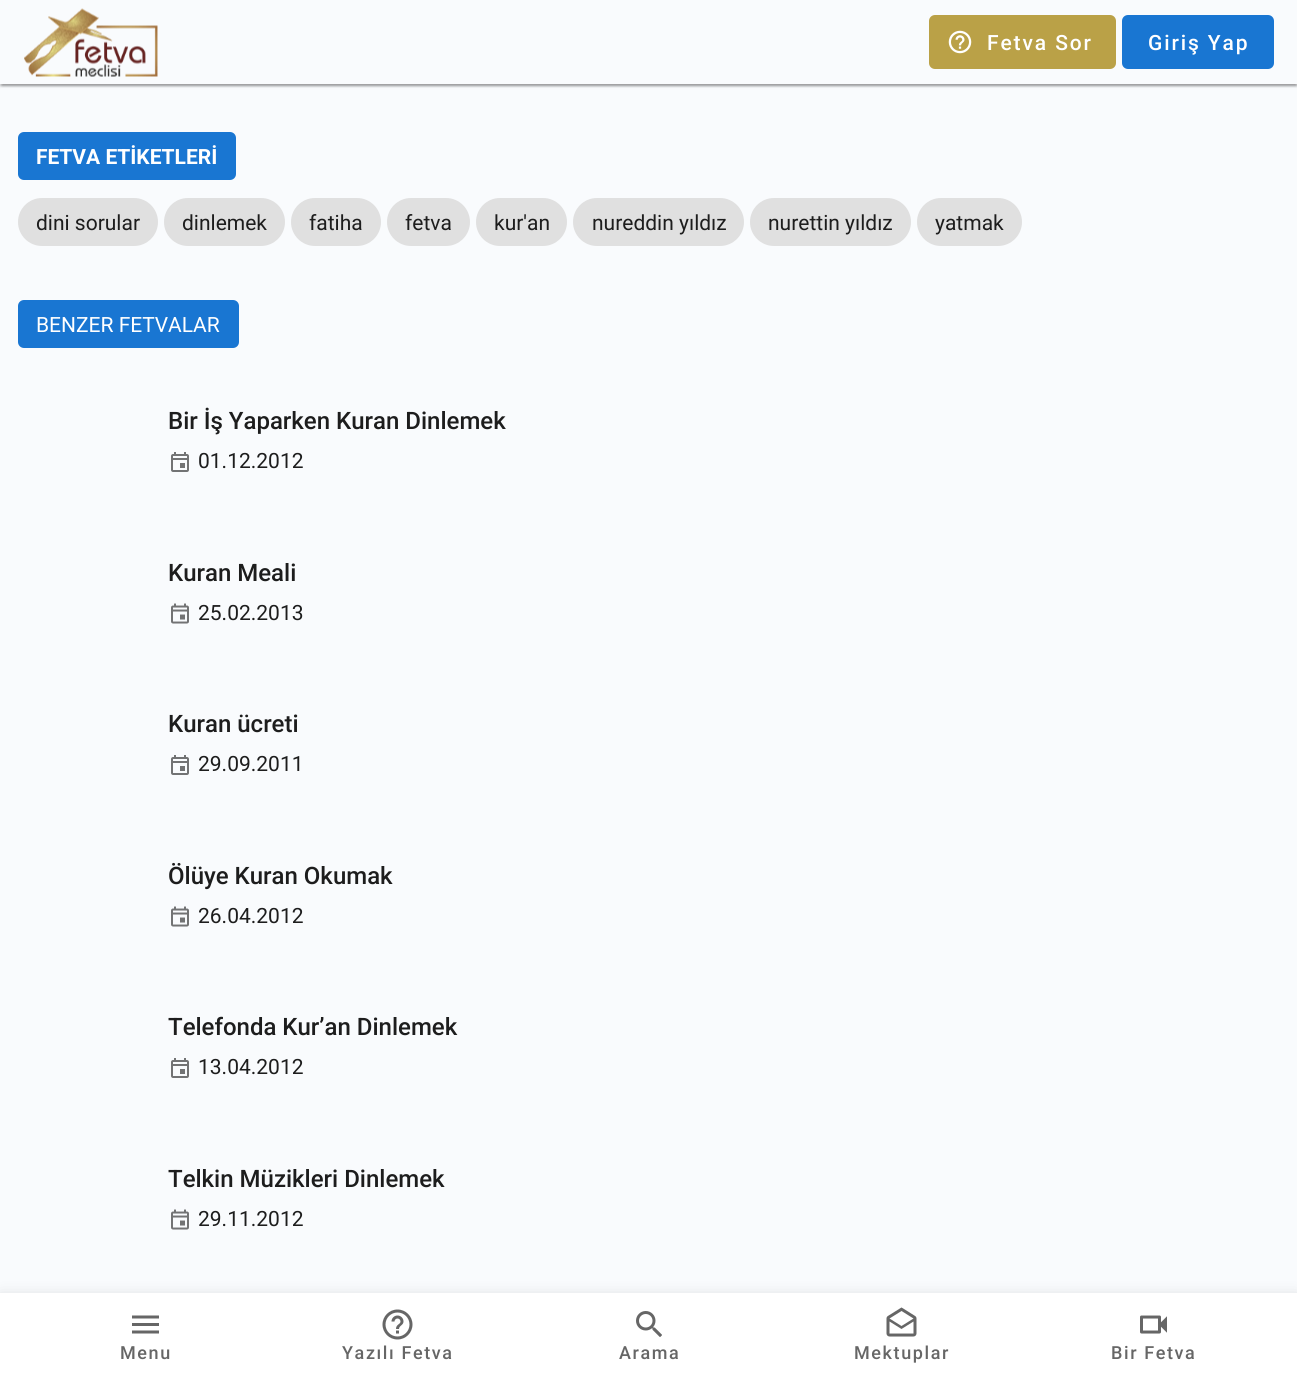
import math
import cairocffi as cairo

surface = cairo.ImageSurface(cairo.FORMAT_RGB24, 1297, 1376)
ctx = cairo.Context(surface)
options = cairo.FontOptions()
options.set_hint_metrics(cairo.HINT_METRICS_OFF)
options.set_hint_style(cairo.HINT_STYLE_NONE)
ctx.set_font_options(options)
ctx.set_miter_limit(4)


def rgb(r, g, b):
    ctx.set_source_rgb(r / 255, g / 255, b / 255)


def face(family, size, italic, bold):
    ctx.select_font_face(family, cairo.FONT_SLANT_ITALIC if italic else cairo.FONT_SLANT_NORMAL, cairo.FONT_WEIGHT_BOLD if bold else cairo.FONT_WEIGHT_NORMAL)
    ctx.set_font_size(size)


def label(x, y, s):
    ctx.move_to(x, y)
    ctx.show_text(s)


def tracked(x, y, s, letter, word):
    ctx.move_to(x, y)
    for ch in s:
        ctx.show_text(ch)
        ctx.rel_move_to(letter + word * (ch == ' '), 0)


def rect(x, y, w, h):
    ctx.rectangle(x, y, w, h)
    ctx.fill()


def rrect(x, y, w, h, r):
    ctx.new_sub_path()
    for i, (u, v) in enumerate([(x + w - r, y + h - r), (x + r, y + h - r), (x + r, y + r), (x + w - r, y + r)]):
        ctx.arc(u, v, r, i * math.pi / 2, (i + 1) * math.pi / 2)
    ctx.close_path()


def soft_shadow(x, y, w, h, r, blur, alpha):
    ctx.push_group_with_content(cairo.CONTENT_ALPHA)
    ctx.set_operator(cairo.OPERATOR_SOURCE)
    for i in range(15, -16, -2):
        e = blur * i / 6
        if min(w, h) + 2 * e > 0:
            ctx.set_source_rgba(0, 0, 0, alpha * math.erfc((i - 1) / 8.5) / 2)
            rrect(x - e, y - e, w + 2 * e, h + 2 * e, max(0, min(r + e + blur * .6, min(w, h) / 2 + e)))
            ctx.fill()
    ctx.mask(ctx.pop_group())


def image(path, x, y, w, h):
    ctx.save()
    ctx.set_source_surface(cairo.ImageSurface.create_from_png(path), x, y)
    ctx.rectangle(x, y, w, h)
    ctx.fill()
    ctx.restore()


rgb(249, 251, 253)
ctx.paint()
rgb(0, 0, 0)
soft_shadow(0, 2, 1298, 84, 0, 2, 0.12)
soft_shadow(0, 2, 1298, 84, 0, 1, 0.14)
soft_shadow(2, 5, 1294, 81, 0, 1, 0.2)
rgb(249, 251, 253)
rect(0, 0, 1297, 84)
image('image0.png', 24, 8, 134, 69)
rgb(186, 161, 71)
rrect(929, 15, 187, 54, 6)
ctx.fill()
image('image1.png', 948, 30, 24, 24)
face('Roboto Medium', 21, 0, 0)
rgb(255, 255, 255)
tracked(987, 50, 'Fetva Sor', 1.9, 0)
rgb(25, 118, 210)
rrect(1122, 15, 152, 54, 6)
ctx.fill()
rgb(255, 255, 255)
tracked(1148, 50, 'Giriş Yap', 1.9, 0)
rgb(25, 118, 210)
rrect(18, 132, 218, 48, 6)
ctx.fill()
face('Roboto', 21, 0, 1)
rgb(255, 255, 255)
label(36, 164, 'FETVA ETİKETLERİ')
rgb(224, 224, 224)
rrect(18, 198, 140, 48, 24)
ctx.fill()
face('Roboto', 21, 0, 0)
rgb(29, 29, 29)
label(36, 230, 'dini sorular')
rgb(224, 224, 224)
rrect(164, 198, 121, 48, 24)
ctx.fill()
rgb(29, 29, 29)
label(182, 230, 'dinlemek')
rgb(224, 224, 224)
rrect(291, 198, 90, 48, 24)
ctx.fill()
rgb(29, 29, 29)
label(309, 230, 'fatiha')
rgb(224, 224, 224)
rrect(387, 198, 83, 48, 24)
ctx.fill()
rgb(29, 29, 29)
label(405, 230, 'fetva')
rgb(224, 224, 224)
rrect(476, 198, 91, 48, 24)
ctx.fill()
rgb(29, 29, 29)
label(494, 230, 'kur\'an')
rgb(224, 224, 224)
rrect(573, 198, 171, 48, 24)
ctx.fill()
rgb(29, 29, 29)
label(592, 230, 'nureddin yıldız')
rgb(224, 224, 224)
rrect(750, 198, 161, 48, 24)
ctx.fill()
rgb(29, 29, 29)
label(768, 230, 'nurettin yıldız')
rgb(224, 224, 224)
rrect(917, 198, 105, 48, 24)
ctx.fill()
rgb(29, 29, 29)
label(935, 230, 'yatmak')
rgb(25, 118, 210)
rrect(18, 300, 221, 48, 6)
ctx.fill()
rgb(255, 255, 255)
label(36, 332, 'BENZER FETVALAR')
face('Roboto Medium', 24, 0, 0)
rgb(29, 29, 29)
label(168, 429, 'Bir İş Yaparken Kuran Dinlemek')
image('image2.png', 171, 452, 18, 20)
face('Roboto', 21, 0, 0)
label(198, 468, '01.12.2012')
face('Roboto Medium', 24, 0, 0)
label(168, 581, 'Kuran Meali')
image('image3.png', 171, 603, 18, 21)
face('Roboto', 21, 0, 0)
label(198, 620, '25.02.2013')
face('Roboto Medium', 24, 0, 0)
label(168, 732, 'Kuran ücreti')
image('image2.png', 171, 755, 18, 20)
face('Roboto', 21, 0, 0)
label(198, 771, '29.09.2011')
face('Roboto Medium', 24, 0, 0)
label(168, 884, 'Ölüye Kuran Okumak')
image('image3.png', 171, 906, 18, 21)
face('Roboto', 21, 0, 0)
label(198, 923, '26.04.2012')
face('Roboto Medium', 24, 0, 0)
label(168, 1035, 'Telefonda Kur’an Dinlemek')
image('image2.png', 171, 1058, 18, 20)
face('Roboto', 21, 0, 0)
label(198, 1074, '13.04.2012')
face('Roboto Medium', 24, 0, 0)
label(168, 1187, 'Telkin Müzikleri Dinlemek')
image('image3.png', 171, 1209, 18, 21)
face('Roboto', 21, 0, 0)
label(198, 1226, '29.11.2012')
rgb(0, 0, 0)
soft_shadow(0, 1295, 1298, 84, 0, 7.5, 0.12)
rgb(255, 255, 255)
rect(0, 1293, 1297, 83)
image('image4.png', 132, 1315, 27, 19)
face('Roboto Medium', 18, 0, 0)
rgb(102, 102, 102)
tracked(120, 1359, 'Menu', 1.6, 0)
image('image5.png', 382, 1309, 31, 31)
tracked(342, 1359, 'Yazılı Fetva', 1.6, 0)
image('image6.png', 636, 1311, 26, 26)
tracked(619, 1359, 'Arama', 1.6, 0)
image('image7.png', 886, 1307, 31, 30)
tracked(854, 1359, 'Mektuplar', 1.6, 0)
image('image8.png', 1140, 1315, 27, 19)
tracked(1111, 1359, 'Bir Fetva', 1.6, 0)
surface.write_to_png('render.png')
